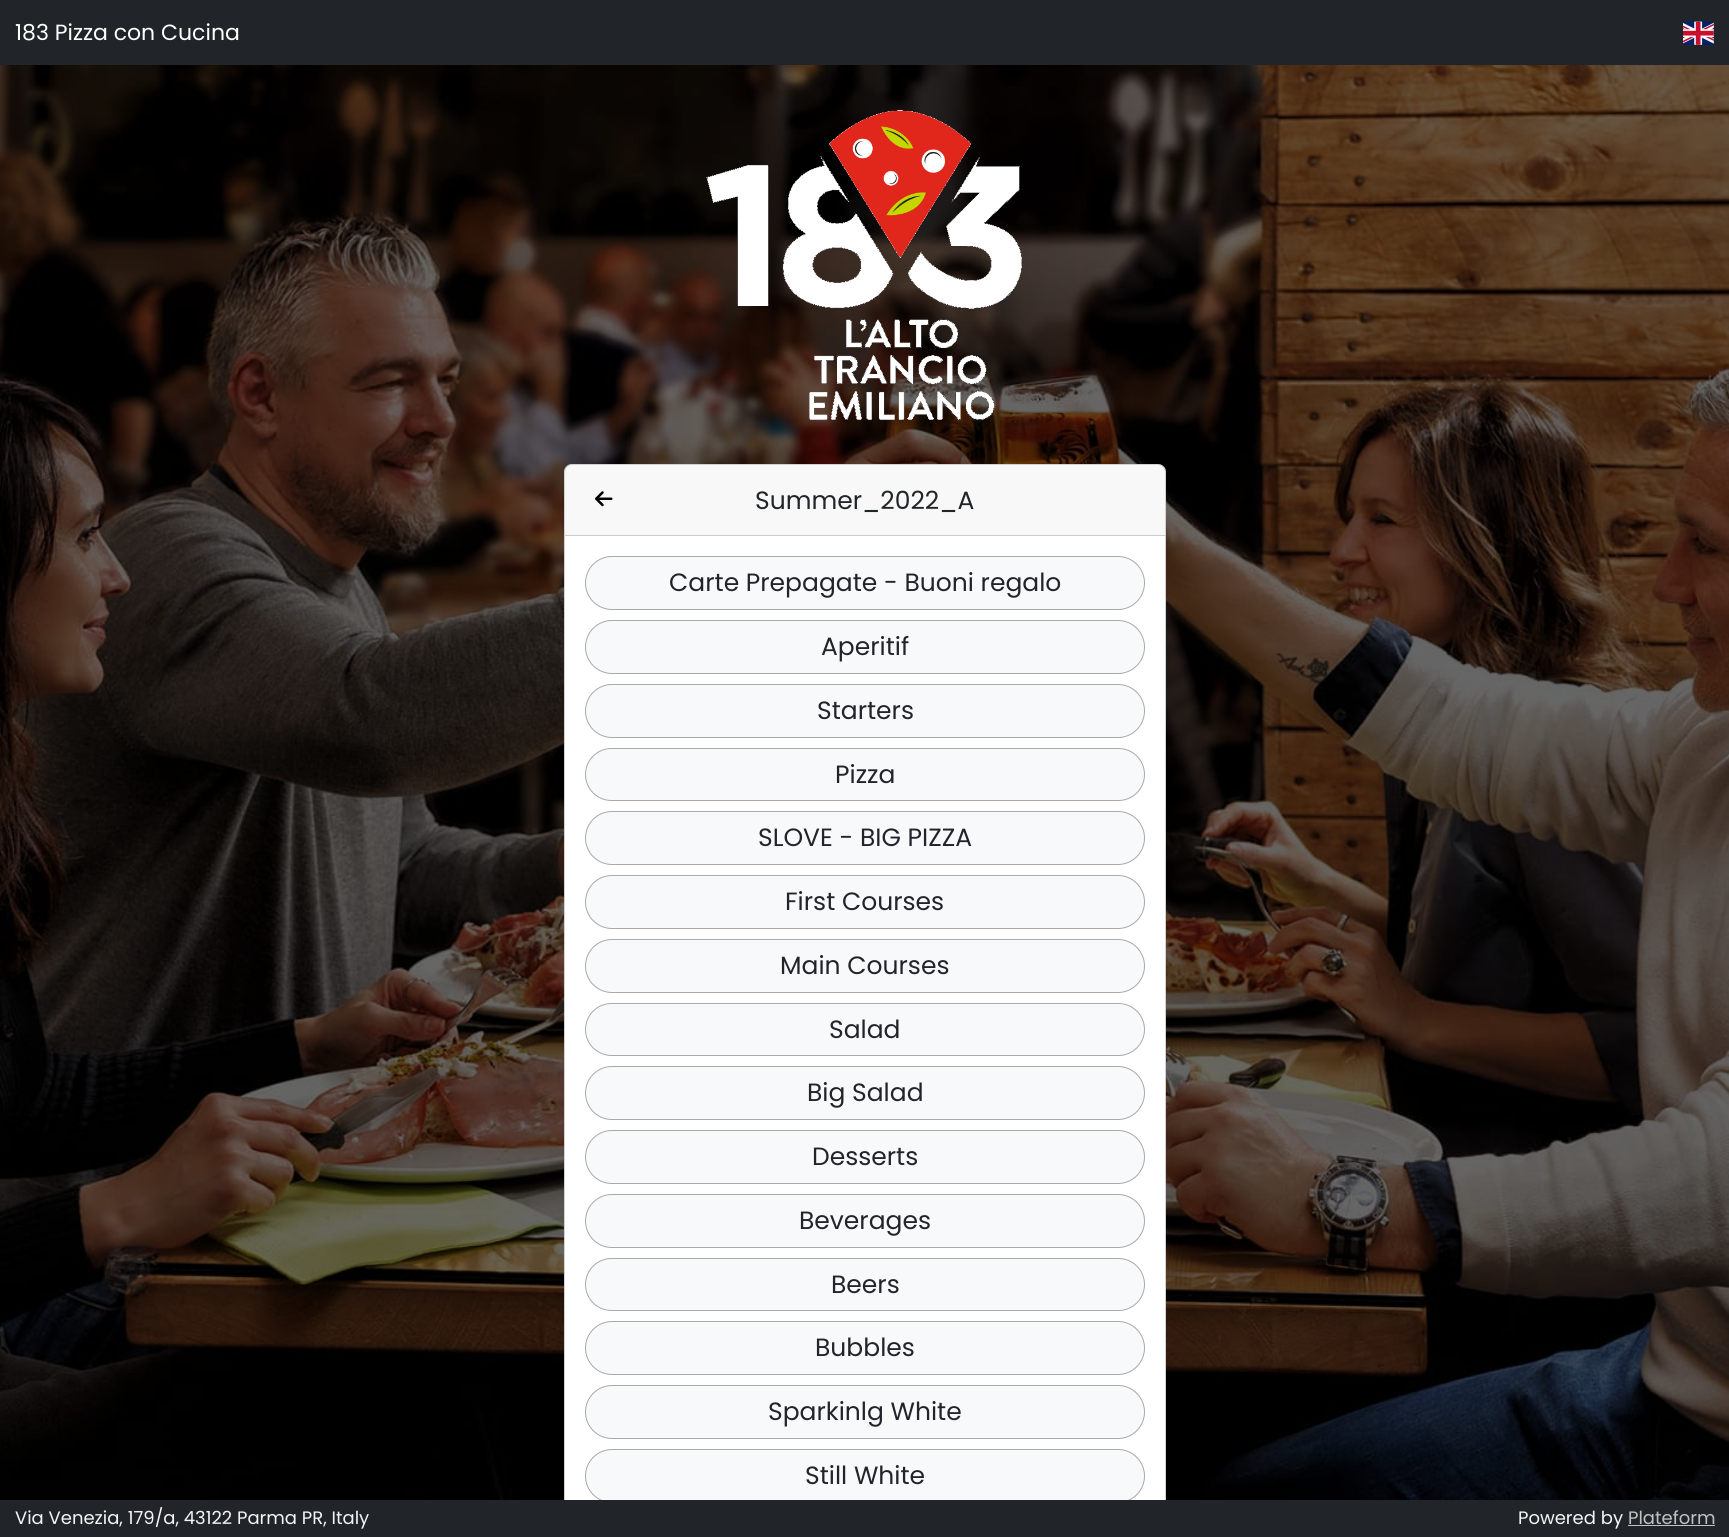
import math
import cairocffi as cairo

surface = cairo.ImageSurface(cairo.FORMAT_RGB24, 1729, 1537)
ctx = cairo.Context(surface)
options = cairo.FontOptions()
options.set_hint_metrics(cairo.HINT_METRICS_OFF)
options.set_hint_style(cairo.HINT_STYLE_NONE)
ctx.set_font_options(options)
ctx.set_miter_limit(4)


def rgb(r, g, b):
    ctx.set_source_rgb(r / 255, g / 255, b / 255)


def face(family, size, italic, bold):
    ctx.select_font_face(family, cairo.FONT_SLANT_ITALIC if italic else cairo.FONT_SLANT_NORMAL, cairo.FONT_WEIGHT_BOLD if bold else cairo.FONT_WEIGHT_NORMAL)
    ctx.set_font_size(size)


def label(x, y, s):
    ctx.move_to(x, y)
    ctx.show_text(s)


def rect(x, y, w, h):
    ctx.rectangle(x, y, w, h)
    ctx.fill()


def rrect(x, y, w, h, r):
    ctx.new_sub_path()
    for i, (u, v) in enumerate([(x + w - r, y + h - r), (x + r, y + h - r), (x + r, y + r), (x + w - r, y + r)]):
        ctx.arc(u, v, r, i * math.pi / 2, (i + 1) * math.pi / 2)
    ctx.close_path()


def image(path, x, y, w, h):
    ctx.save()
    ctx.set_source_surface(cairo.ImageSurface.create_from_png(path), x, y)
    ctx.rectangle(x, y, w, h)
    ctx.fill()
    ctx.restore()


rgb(255, 255, 255)
ctx.paint()
rgb(33, 37, 41)
rect(0, 0, 1729, 65)
face('Poppins', 22, 0, 0)
rgb(255, 255, 255)
label(15, 40, '183 Pizza con Cucina')
image('image0.png', 1683, 21, 31, 24)
image('image1.png', 0, 65, 1729, 1435)
image('image2.png', 706, 110, 316, 310)
rrect(564, 464, 602, 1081, 8)
ctx.fill()
rrect(564.5, 464.5, 601, 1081, 7.5)
ctx.set_source_rgba(0, 0, 0, 0.18)
ctx.set_line_width(1)
ctx.stroke()
ctx.set_source_rgba(0, 0, 0, 0.03)
rect(565, 465, 600, 70)
rgb(204, 204, 204)
rect(565, 535, 600, 1)
image('image3.png', 595, 491, 18, 16)
face('Poppins', 25, 0, 0)
rgb(33, 37, 41)
label(755, 509, 'Summer_2022_A')
rgb(248, 249, 250)
rrect(585.5, 556.5, 559, 53, 26.5)
ctx.fill_preserve()
rgb(169, 169, 169)
ctx.stroke()
rgb(33, 37, 41)
label(669, 591, 'Carte Prepagate - Buoni regalo')
rgb(248, 249, 250)
rrect(585.5, 620.5, 559, 53, 26.5)
ctx.fill_preserve()
rgb(169, 169, 169)
ctx.stroke()
rgb(33, 37, 41)
label(821, 655, 'Aperitif')
rgb(248, 249, 250)
rrect(585.5, 684.5, 559, 53, 26.5)
ctx.fill_preserve()
rgb(169, 169, 169)
ctx.stroke()
rgb(33, 37, 41)
label(817, 719, 'Starters')
rgb(248, 249, 250)
rrect(585.5, 748.5, 559, 52, 26)
ctx.fill_preserve()
rgb(169, 169, 169)
ctx.stroke()
rgb(33, 37, 41)
label(835, 783, 'Pizza')
rgb(248, 249, 250)
rrect(585.5, 811.5, 559, 53, 26.5)
ctx.fill_preserve()
rgb(169, 169, 169)
ctx.stroke()
rgb(33, 37, 41)
label(758, 846, 'SLOVE - BIG PIZZA')
rgb(248, 249, 250)
rrect(585.5, 875.5, 559, 53, 26.5)
ctx.fill_preserve()
rgb(169, 169, 169)
ctx.stroke()
rgb(33, 37, 41)
label(785, 910, 'First Courses')
rgb(248, 249, 250)
rrect(585.5, 939.5, 559, 53, 26.5)
ctx.fill_preserve()
rgb(169, 169, 169)
ctx.stroke()
rgb(33, 37, 41)
label(780, 974, 'Main Courses')
rgb(248, 249, 250)
rrect(585.5, 1003.5, 559, 52, 26)
ctx.fill_preserve()
rgb(169, 169, 169)
ctx.stroke()
rgb(33, 37, 41)
label(829, 1038, 'Salad')
rgb(248, 249, 250)
rrect(585.5, 1066.5, 559, 53, 26.5)
ctx.fill_preserve()
rgb(169, 169, 169)
ctx.stroke()
rgb(33, 37, 41)
label(807, 1101, 'Big Salad')
rgb(248, 249, 250)
rrect(585.5, 1130.5, 559, 53, 26.5)
ctx.fill_preserve()
rgb(169, 169, 169)
ctx.stroke()
rgb(33, 37, 41)
label(812, 1165, 'Desserts')
rgb(248, 249, 250)
rrect(585.5, 1194.5, 559, 53, 26.5)
ctx.fill_preserve()
rgb(169, 169, 169)
ctx.stroke()
rgb(33, 37, 41)
label(799, 1229, 'Beverages')
rgb(248, 249, 250)
rrect(585.5, 1258.5, 559, 52, 26)
ctx.fill_preserve()
rgb(169, 169, 169)
ctx.stroke()
rgb(33, 37, 41)
label(831, 1293, 'Beers')
rgb(248, 249, 250)
rrect(585.5, 1321.5, 559, 53, 26.5)
ctx.fill_preserve()
rgb(169, 169, 169)
ctx.stroke()
rgb(33, 37, 41)
label(815, 1356, 'Bubbles')
rgb(248, 249, 250)
rrect(585.5, 1385.5, 559, 53, 26.5)
ctx.fill_preserve()
rgb(169, 169, 169)
ctx.stroke()
rgb(33, 37, 41)
label(768, 1420, 'Sparkinlg White')
rgb(248, 249, 250)
rrect(585.5, 1449.5, 559, 53, 26.5)
ctx.fill_preserve()
rgb(169, 169, 169)
ctx.stroke()
rgb(33, 37, 41)
label(805, 1484, 'Still White')
rect(0, 1500, 1729, 37)
face('Poppins', 18, 0, 0)
rgb(245, 245, 245)
label(15, 1524, 'Via Venezia, 179/a, 43122 Parma PR, Italy')
label(1518, 1524, 'Powered by')
rgb(194, 194, 194)
label(1628, 1524, 'Plateform')
rect(1628, 1525, 87, 1)
surface.write_to_png('render.png')
